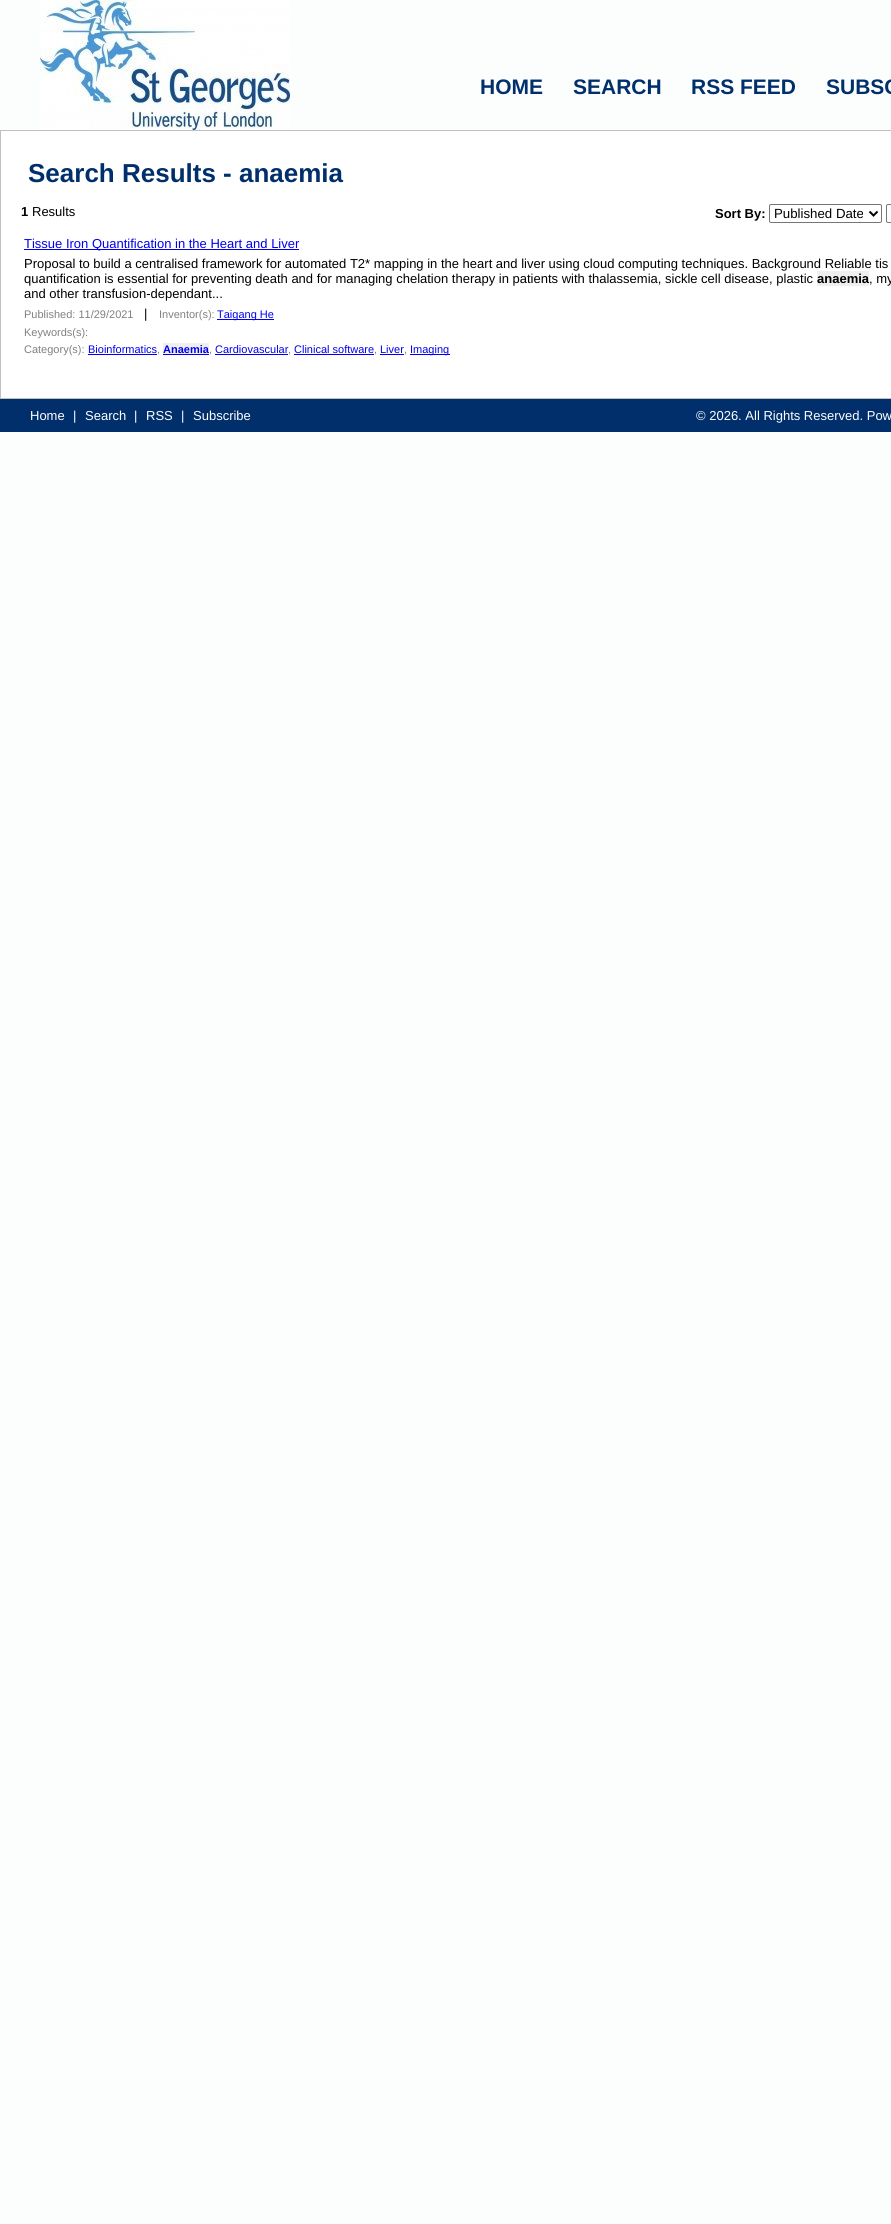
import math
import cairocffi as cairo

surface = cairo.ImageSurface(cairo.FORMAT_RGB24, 891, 2224)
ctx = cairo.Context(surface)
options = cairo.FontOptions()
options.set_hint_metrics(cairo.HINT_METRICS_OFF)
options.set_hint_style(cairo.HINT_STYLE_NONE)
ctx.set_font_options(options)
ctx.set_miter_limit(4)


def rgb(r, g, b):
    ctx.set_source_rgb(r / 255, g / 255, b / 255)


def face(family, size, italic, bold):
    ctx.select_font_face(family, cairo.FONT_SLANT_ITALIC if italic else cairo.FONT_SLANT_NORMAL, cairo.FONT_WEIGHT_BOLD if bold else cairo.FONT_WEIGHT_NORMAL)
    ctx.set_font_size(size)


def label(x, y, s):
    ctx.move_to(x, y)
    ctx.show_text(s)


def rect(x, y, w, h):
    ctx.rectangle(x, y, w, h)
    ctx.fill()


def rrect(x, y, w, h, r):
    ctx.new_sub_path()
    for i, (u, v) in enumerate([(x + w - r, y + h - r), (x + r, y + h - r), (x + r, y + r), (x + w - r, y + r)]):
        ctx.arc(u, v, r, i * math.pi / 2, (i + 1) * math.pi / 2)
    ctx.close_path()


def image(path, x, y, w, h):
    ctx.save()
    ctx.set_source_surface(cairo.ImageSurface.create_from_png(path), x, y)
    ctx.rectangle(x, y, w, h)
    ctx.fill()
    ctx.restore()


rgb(252, 254, 254)
ctx.paint()
image('image0.png', 40, 0, 250, 130)
face('Liberation Sans', 21, 0, 1)
rgb(0, 47, 108)
label(480, 94, 'HOME')
label(573, 94, 'SEARCH')
label(691, 94, 'RSS FEED')
label(826, 94, 'SUBSC')
rgb(255, 255, 255)
ctx.rectangle(0.5, 130.5, 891, 268)
ctx.fill_preserve()
rgb(192, 192, 192)
ctx.set_line_width(1)
ctx.stroke()
face('Liberation Sans', 26, 0, 1)
rgb(0, 47, 108)
label(28, 182, 'Search Results - anaemia')
face('Liberation Sans', 13, 0, 1)
rgb(0, 0, 0)
label(21, 216, '1')
face('Liberation Sans', 13, 0, 0)
label(32, 216, 'Results')
face('Liberation Sans', 13, 0, 1)
label(715, 218, 'Sort By:')
rrect(769.5, 204.5, 112, 18, 1.5)
rgb(118, 118, 118)
ctx.stroke()
ctx.new_path()
ctx.move_to(869.5, 211.5)
ctx.line_to(873.5, 215.5)
ctx.line_to(877.5, 211.5)
rgb(0, 0, 0)
ctx.set_line_width(2)
ctx.stroke()
face('Liberation Sans', 13.25, 0, 0)
label(774, 218, 'Published Date')
rrect(886.5, 204.5, 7, 18, 1.5)
rgb(118, 118, 118)
ctx.set_line_width(1)
ctx.stroke()
rgb(0, 0, 238)
rect(24, 249, 275, 1)
face('Liberation Sans', 13, 0, 0)
label(24, 248, 'Tissue Iron Quantification in the Heart and Liver')
rgb(0, 0, 0)
label(24, 268, 'Proposal to build a centralised framework for automated T2* mapping in the heart and liver using cloud computing techniques. Background Reliable tis')
label(24, 283, 'quantification is essential for preventing death and for managing chelation therapy in patients with thalassemia, sickle cell disease, plastic')
rgb(239, 239, 239)
rect(817, 271, 52, 15)
face('Liberation Sans', 13, 0, 1)
rgb(0, 0, 0)
label(817, 283, 'anaemia')
face('Liberation Sans', 13, 0, 0)
label(869, 283, ', my')
label(24, 298, 'and other transfusion-dependant...')
face('Liberation Sans', 11, 0, 0)
rgb(128, 128, 128)
label(24, 318, 'Published: 11/29/2021')
face('Liberation Sans', 13, 0, 0)
rgb(0, 0, 0)
label(144, 318, '|')
face('Liberation Sans', 11, 0, 0)
rgb(128, 128, 128)
label(159, 318, 'Inventor(s):')
rgb(0, 0, 238)
rect(217, 319, 57, 1)
label(217, 318, 'Taigang He')
rgb(128, 128, 128)
label(24, 336, 'Keywords(s):')
label(24, 353, 'Category(s):')
rgb(0, 0, 238)
label(88, 353, 'Bioinformatics')
rgb(128, 128, 128)
label(157, 353, ',')
rgb(0, 0, 238)
rect(88, 354, 69, 1)
rgb(239, 239, 239)
rect(163, 343, 46, 11)
face('Liberation Sans', 11, 0, 1)
rgb(0, 0, 238)
label(163, 353, 'Anaemia')
face('Liberation Sans', 11, 0, 0)
rgb(128, 128, 128)
label(209, 353, ',')
rgb(0, 0, 238)
rect(163, 354, 46, 1)
label(215, 353, 'Cardiovascular')
rgb(128, 128, 128)
label(288, 353, ',')
rgb(0, 0, 238)
rect(215, 354, 73, 1)
label(294, 353, 'Clinical software')
rgb(128, 128, 128)
label(374, 353, ',')
rgb(0, 0, 238)
rect(294, 354, 80, 1)
label(380, 353, 'Liver')
rgb(128, 128, 128)
label(404, 353, ',')
rgb(0, 0, 238)
rect(380, 354, 24, 1)
rect(410, 354, 40, 1)
label(410, 353, 'Imaging')
rgb(0, 47, 108)
rect(0, 399, 891, 33)
face('Liberation Sans', 13, 0, 0)
rgb(255, 255, 255)
label(30, 420, 'Home')
label(73, 420, '|')
label(85, 420, 'Search')
label(134, 420, '|')
label(146, 420, 'RSS')
label(181, 420, '|')
label(193, 420, 'Subscribe')
label(696, 420, '© 2026. All Rights Reserved. Pow')
surface.write_to_png('render.png')
